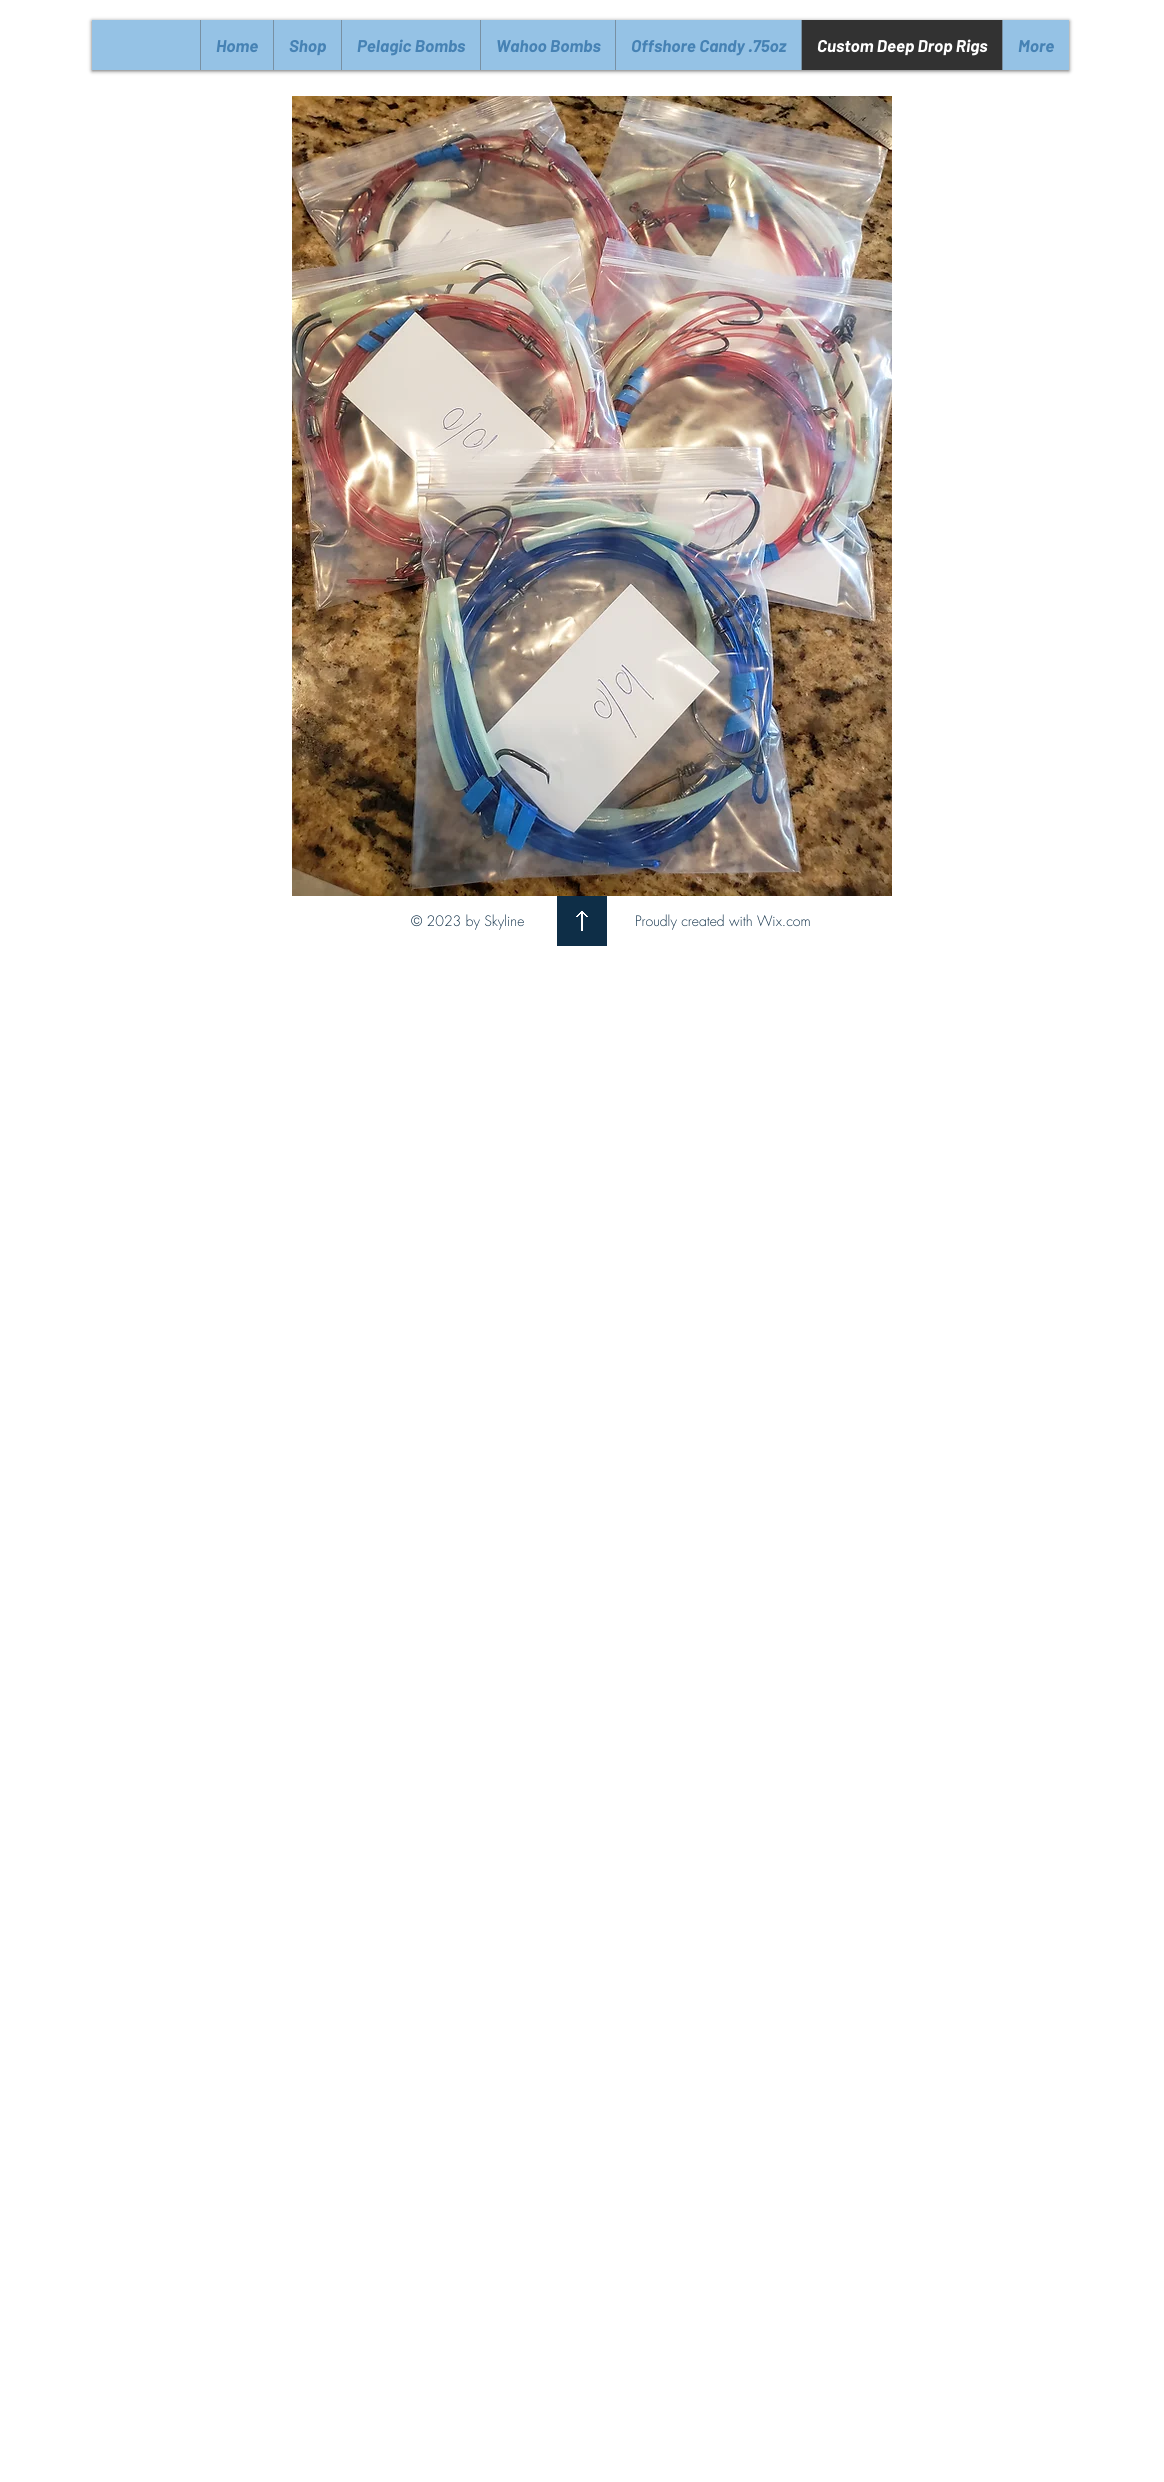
import math
import cairocffi as cairo

surface = cairo.ImageSurface(cairo.FORMAT_RGB24, 1164, 2482)
ctx = cairo.Context(surface)
options = cairo.FontOptions()
options.set_hint_metrics(cairo.HINT_METRICS_OFF)
options.set_hint_style(cairo.HINT_STYLE_NONE)
ctx.set_font_options(options)
ctx.set_miter_limit(4)


def rgb(r, g, b):
    ctx.set_source_rgb(r / 255, g / 255, b / 255)


def face(family, size, italic, bold):
    ctx.select_font_face(family, cairo.FONT_SLANT_ITALIC if italic else cairo.FONT_SLANT_NORMAL, cairo.FONT_WEIGHT_BOLD if bold else cairo.FONT_WEIGHT_NORMAL)
    ctx.set_font_size(size)


def label(x, y, s):
    ctx.move_to(x, y)
    ctx.show_text(s)


def rect(x, y, w, h):
    ctx.rectangle(x, y, w, h)
    ctx.fill()


def rrect(x, y, w, h, r):
    ctx.new_sub_path()
    for i, (u, v) in enumerate([(x + w - r, y + h - r), (x + r, y + h - r), (x + r, y + r), (x + w - r, y + r)]):
        ctx.arc(u, v, r, i * math.pi / 2, (i + 1) * math.pi / 2)
    ctx.close_path()


def soft_shadow(x, y, w, h, r, blur, alpha):
    ctx.push_group_with_content(cairo.CONTENT_ALPHA)
    ctx.set_operator(cairo.OPERATOR_SOURCE)
    for i in range(15, -16, -2):
        e = blur * i / 6
        if min(w, h) + 2 * e > 0:
            ctx.set_source_rgba(0, 0, 0, alpha * math.erfc((i - 1) / 8.5) / 2)
            rrect(x - e, y - e, w + 2 * e, h + 2 * e, max(0, min(r + e + blur * .6, min(w, h) / 2 + e)))
            ctx.fill()
    ctx.mask(ctx.pop_group())


def image(path, x, y, w, h):
    ctx.save()
    ctx.set_source_surface(cairo.ImageSurface.create_from_png(path), x, y)
    ctx.rectangle(x, y, w, h)
    ctx.fill()
    ctx.restore()


rgb(255, 255, 255)
ctx.paint()
rgb(0, 0, 0)
soft_shadow(92, 21, 977, 50, 0, 2, 0.6)
rgb(149, 194, 229)
rect(92, 20, 977, 50)
rgb(120, 144, 163)
rect(200, 20, 1, 50)
face('Barlow', 17, 1, 1)
rgb(70, 130, 180)
label(216, 52, 'Home')
rgb(120, 144, 163)
rect(273, 20, 1, 50)
rgb(70, 130, 180)
label(289, 52, 'Shop')
rgb(120, 144, 163)
rect(341, 20, 1, 50)
rgb(70, 130, 180)
label(357, 52, 'Pelagic Bombs')
rgb(120, 144, 163)
rect(480, 20, 1, 50)
rgb(70, 130, 180)
label(496, 52, 'Wahoo Bombs')
rgb(120, 144, 163)
rect(615, 20, 1, 50)
rgb(70, 130, 180)
label(631, 52, 'Offshore Candy .75oz')
rgb(50, 50, 50)
rect(802, 20, 200, 50)
rgb(120, 144, 163)
rect(801, 20, 1, 50)
rgb(255, 255, 255)
label(817, 52, 'Custom Deep Drop Rigs')
rgb(120, 144, 163)
rect(1002, 20, 1, 50)
rgb(70, 130, 180)
label(1018, 52, 'More')
image('image0.png', 292, 96, 600, 800)
face('futura Light', 14, 0, 0)
rgb(14, 46, 71)
label(411, 926, '© 2023 by Skyline')
image('image1.png', 557, 896, 50, 50)
label(635, 926, 'Proudly created with Wix.com')
surface.write_to_png('render.png')
